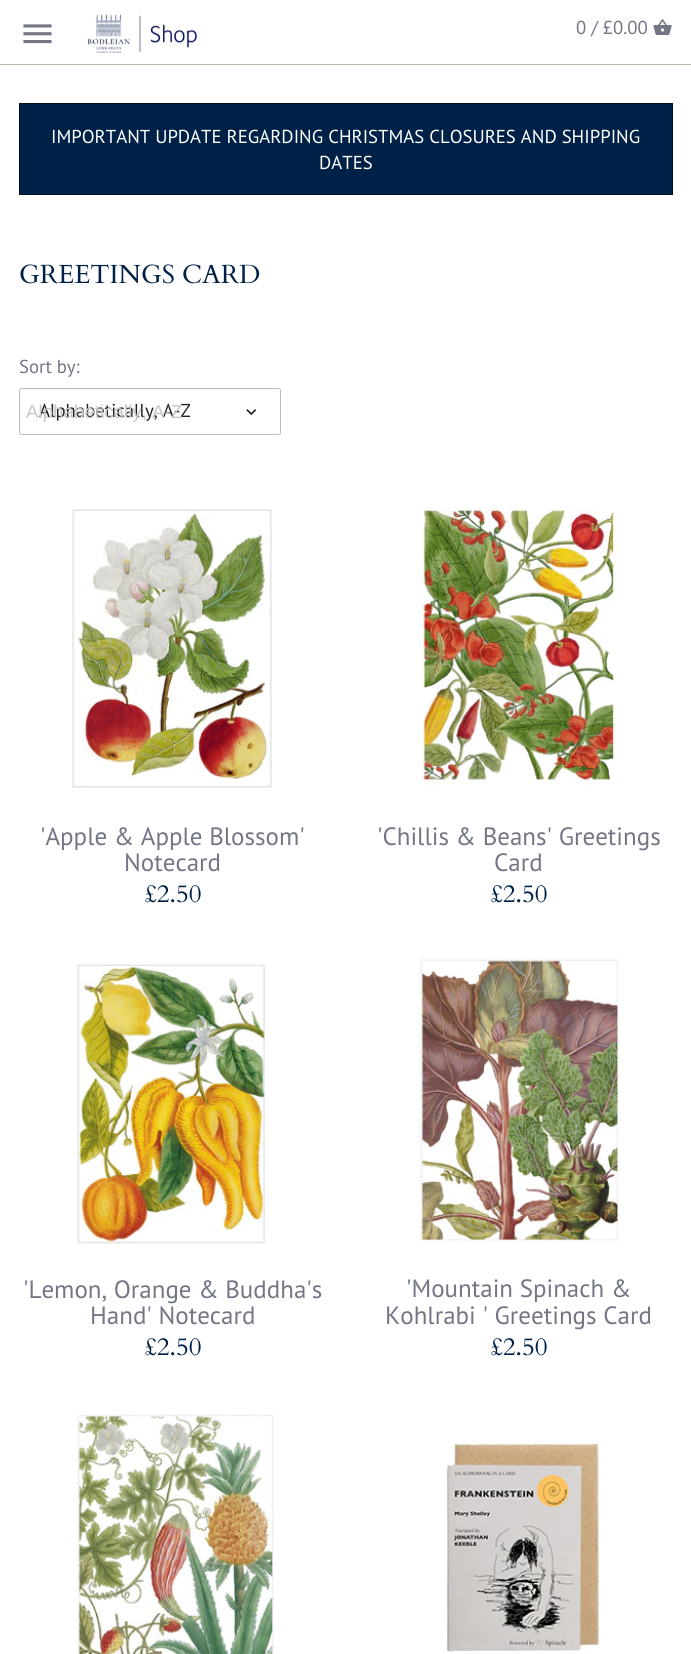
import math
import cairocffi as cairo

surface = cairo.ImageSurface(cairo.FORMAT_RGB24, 691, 1654)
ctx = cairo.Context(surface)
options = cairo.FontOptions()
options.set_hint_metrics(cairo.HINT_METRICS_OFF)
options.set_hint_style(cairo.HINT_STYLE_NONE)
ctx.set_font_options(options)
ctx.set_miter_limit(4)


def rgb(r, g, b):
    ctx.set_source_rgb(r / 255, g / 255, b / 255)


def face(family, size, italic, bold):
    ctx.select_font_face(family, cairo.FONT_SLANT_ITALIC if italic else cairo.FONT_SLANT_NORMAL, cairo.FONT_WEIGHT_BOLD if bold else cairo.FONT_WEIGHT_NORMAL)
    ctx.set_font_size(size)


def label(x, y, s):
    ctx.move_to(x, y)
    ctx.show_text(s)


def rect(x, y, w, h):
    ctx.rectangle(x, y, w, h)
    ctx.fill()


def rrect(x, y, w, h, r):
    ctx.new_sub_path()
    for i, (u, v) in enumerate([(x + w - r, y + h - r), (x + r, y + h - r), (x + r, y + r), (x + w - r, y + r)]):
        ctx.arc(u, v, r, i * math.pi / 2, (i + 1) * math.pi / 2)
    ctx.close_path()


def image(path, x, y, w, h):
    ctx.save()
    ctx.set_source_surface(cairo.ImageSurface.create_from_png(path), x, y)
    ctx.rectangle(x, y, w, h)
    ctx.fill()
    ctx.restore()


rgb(255, 255, 255)
ctx.paint()
rgb(191, 186, 176)
rect(0, 64, 691, 1)
image('image0.png', 23, 24, 29, 20)
image('image1.png', 86, 14, 111, 39)
face('PT Sans', 18.75, 0, 0)
rgb(114, 118, 133)
label(576, 34, '0 / £0.00')
image('image2.png', 653, 19, 19, 16)
rgb(0, 33, 71)
ctx.rectangle(19.5, 103.5, 653, 91)
ctx.fill_preserve()
rgb(0, 14, 30)
ctx.set_line_width(1)
ctx.stroke()
rgb(255, 255, 255)
label(51, 143, 'IMPORTANT UPDATE REGARDING CHRISTMAS CLOSURES AND SHIPPING')
label(319, 169, 'DATES')
face('Cardo', 26.25, 0, 0)
rgb(0, 33, 71)
label(19, 283, 'GREETINGS CARD')
face('PT Sans', 18.75, 0, 0)
rgb(114, 118, 133)
label(19, 373, 'Sort by:')
rrect(19.5, 388.5, 261, 46, 2)
rgb(188, 188, 188)
ctx.stroke()
rgb(34, 34, 34)
label(39, 417, 'Alphabetically, A-Z')
image('image3.png', 246, 409, 11, 7)
rrect(20.5, 389.5, 259, 44, 2)
rgb(255, 255, 255)
ctx.stroke()
face('Liberation Sans', 18.75, 0, 0)
rgb(200, 200, 200)
label(26, 418, 'Alphabetically, A-Z')
image('image4.png', 72, 509, 200, 279)
face('PT Sans', 25, 0, 0)
rgb(114, 118, 133)
label(40, 845, '\'Apple & Apple Blossom\'')
label(124, 871, 'Notecard')
face('Cardo', 25, 0, 0)
rgb(0, 33, 71)
label(144, 902, '£2.50')
image('image5.png', 422, 507, 197, 279)
face('PT Sans', 25, 0, 0)
rgb(114, 118, 133)
label(377, 845, '\'Chillis & Beans\' Greetings')
label(494, 871, 'Card')
face('Cardo', 25, 0, 0)
rgb(0, 33, 71)
label(490, 902, '£2.50')
image('image6.png', 77, 963, 189, 281)
face('PT Sans', 25, 0, 0)
rgb(114, 118, 133)
label(23, 1298, '\'Lemon, Orange & Buddha\'s')
label(90, 1324, 'Hand\' Notecard')
face('Cardo', 25, 0, 0)
rgb(0, 33, 71)
label(144, 1355, '£2.50')
image('image7.png', 418, 957, 202, 285)
face('PT Sans', 25, 0, 0)
rgb(114, 118, 133)
label(406, 1297, '\'Mountain Spinach &')
label(385, 1324, 'Kohlrabi \' Greetings Card')
face('Cardo', 25, 0, 0)
rgb(0, 33, 71)
label(490, 1355, '£2.50')
image('image8.png', 76, 1414, 198, 240)
image('image9.png', 446, 1440, 154, 214)
surface.write_to_png('render.png')
